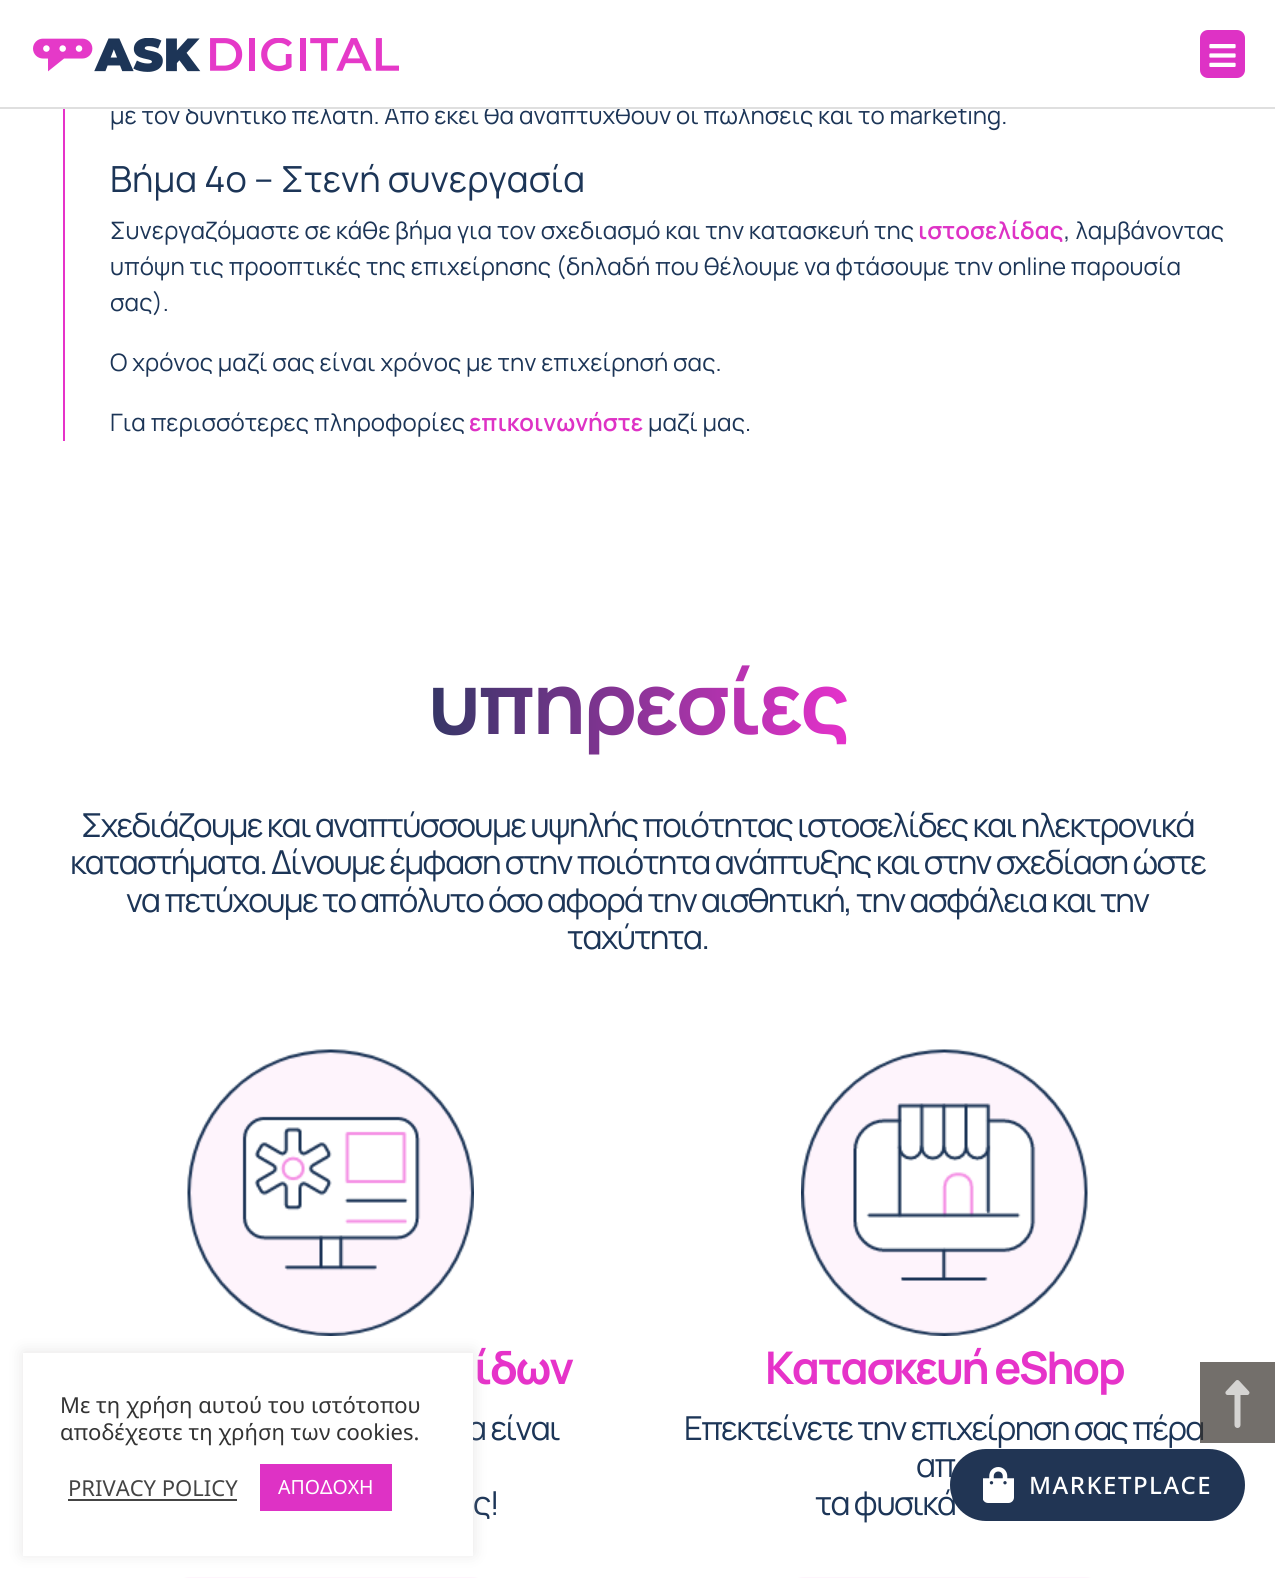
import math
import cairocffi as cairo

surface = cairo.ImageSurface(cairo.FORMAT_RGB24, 1275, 1578)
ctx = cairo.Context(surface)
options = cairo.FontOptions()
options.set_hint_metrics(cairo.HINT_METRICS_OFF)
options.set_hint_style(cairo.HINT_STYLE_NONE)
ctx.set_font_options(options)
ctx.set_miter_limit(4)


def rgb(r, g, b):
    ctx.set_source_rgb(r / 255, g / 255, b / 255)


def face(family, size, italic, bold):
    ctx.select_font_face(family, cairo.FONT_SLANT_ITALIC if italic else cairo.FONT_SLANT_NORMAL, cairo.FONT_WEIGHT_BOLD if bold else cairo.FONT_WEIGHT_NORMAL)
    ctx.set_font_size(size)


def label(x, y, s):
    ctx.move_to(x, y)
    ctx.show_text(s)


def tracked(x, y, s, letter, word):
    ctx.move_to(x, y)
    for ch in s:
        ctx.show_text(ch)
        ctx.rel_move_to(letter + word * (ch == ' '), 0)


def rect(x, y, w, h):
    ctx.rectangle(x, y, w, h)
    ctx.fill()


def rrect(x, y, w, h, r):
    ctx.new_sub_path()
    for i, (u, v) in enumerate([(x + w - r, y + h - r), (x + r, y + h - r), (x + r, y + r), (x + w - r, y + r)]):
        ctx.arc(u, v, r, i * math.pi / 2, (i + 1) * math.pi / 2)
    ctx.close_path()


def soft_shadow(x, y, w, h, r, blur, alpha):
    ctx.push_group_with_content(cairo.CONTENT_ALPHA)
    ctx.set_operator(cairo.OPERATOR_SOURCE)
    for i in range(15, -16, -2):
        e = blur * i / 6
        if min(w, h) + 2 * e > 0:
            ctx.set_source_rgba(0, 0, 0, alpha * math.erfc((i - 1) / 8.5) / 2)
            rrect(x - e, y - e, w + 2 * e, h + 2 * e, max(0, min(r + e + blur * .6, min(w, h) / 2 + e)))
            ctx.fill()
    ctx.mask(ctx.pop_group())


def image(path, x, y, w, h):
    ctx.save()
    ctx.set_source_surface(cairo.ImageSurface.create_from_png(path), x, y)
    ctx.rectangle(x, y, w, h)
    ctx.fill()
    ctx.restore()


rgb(255, 255, 255)
ctx.paint()
face('Manrope', 24, 0, 0)
rgb(28, 53, 87)
label(110, 124, 'με τον δυνητικό πελάτη. Από εκεί θα αναπτυχθούν οι πωλήσεις και το marketing.')
rgb(255, 255, 255)
rect(188, 105, 783, 2)
rgb(223, 223, 223)
rect(0, 107, 1275, 2)
image('image0.png', 33, 38, 366, 34)
rgb(222, 50, 197)
rrect(1200, 30, 45, 48, 8)
ctx.fill()
image('image1.png', 1209, 44, 27, 23)
rgb(230, 51, 201)
rect(63, 109, 2, 332)
face('Manrope', 36, 0, 0)
rgb(28, 53, 87)
label(110, 192, 'Βήμα 4ο – Στενή συνεργασία')
face('Manrope', 24, 0, 0)
label(110, 239, 'Συνεργαζόμαστε σε κάθε βήμα για τον σχεδιασμό και την κατασκευή της')
face('Manrope SemiBold', 24, 0, 0)
rgb(222, 50, 197)
label(918, 239, 'ιστοσελίδας')
face('Manrope', 24, 0, 0)
rgb(28, 53, 87)
label(1064, 239, ', λαμβάνοντας')
label(110, 275, 'υπόψη τις προοπτικές της επιχείρησης (δηλαδή που θέλουμε να φτάσουμε την online παρουσία')
label(110, 311, 'σας).')
label(110, 371, 'Ο χρόνος μαζί σας είναι χρόνος με την επιχείρησή σας.')
label(110, 431, 'Για περισσότερες πληροφορίες')
face('Manrope SemiBold', 24, 0, 0)
rgb(222, 50, 197)
label(469, 431, 'επικοινωνήστε')
face('Manrope', 24, 0, 0)
rgb(28, 53, 87)
label(648, 431, 'μαζί μας.')
face('Manrope', 85.5, 0, 1)
gradient = cairo.LinearGradient(428, 705, 847, 705)
gradient.add_color_stop_rgba(0, 0.208, 0.212, 0.4, 1)
gradient.add_color_stop_rgba(1, 0.898, 0.196, 0.796, 1)
ctx.set_source(gradient)
tracked(428, 734, 'υπηρεσίες', -3, 0)
face('Manrope', 33, 0, 0)
rgb(28, 53, 87)
tracked(81, 837, 'Σχεδιάζουμε και αναπτύσσουμε υψηλής ποιότητας ιστοσελίδες και ηλεκτρονικά', -1.65, 0)
tracked(70, 874, 'καταστήματα. Δίνουμε έμφαση στην ποιότητα ανάπτυξης και στην σχεδίαση ώστε', -1.65, 0)
tracked(126, 912, 'να πετύχουμε το απόλυτο όσο αφορά την αισθητική, την ασφάλεια και την', -1.65, 0)
tracked(567, 949, 'ταχύτητα.', -1.65, 0)
image('image2.png', 187, 1049, 287, 287)
face('Manrope', 45, 0, 1)
rgb(230, 51, 201)
tracked(474, 1384, 'ίδων', -2.25, 0)
face('Manrope', 33, 0, 0)
rgb(28, 53, 87)
tracked(467, 1440, 'α είναι', -1.65, 0)
tracked(473, 1515, 'ς!', -1.65, 0)
rgb(254, 244, 252)
rrect(168, 1577, 326, 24, 22.5)
ctx.fill()
image('image3.png', 801, 1049, 287, 287)
face('Manrope', 45, 0, 1)
rgb(230, 51, 201)
tracked(765, 1384, 'Κατασκευή eShop', -2.25, 0)
face('Manrope', 33, 0, 0)
rgb(28, 53, 87)
tracked(684, 1440, 'Επεκτείνετε την επιχείρηση σας πέρα', -1.65, 0)
tracked(916, 1477, 'απ', -1.65, 0)
tracked(815, 1515, 'τα φυσικά', -1.65, 0)
rgb(254, 244, 252)
rrect(782, 1577, 325, 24, 22.5)
ctx.fill()
ctx.set_source_rgba(0.22, 0.196, 0.176, 0.7)
rect(1200, 1362, 75, 81)
image('image4.png', 1225, 1380, 25, 48)
rgb(172, 171, 171)
soft_shadow(23, 1352, 450, 202, 0, 7.5, 0.3)
rgb(255, 255, 255)
rect(23, 1353, 450, 203)
face('Noto Sans', 22, 0, 0)
rgb(51, 51, 51)
label(60, 1413, 'Με τη χρήση αυτού του ιστότοπου')
label(60, 1440, 'αποδέχεστε τη χρήση των cookies.')
rgb(68, 68, 68)
label(68, 1496, 'PRIVACY POLICY')
rect(68, 1499, 169, 2)
rgb(222, 50, 197)
rect(260, 1464, 132, 47)
face('Noto Sans', 19.5, 0, 0)
rgb(255, 255, 255)
label(278, 1494, 'ΑΠΟΔΟΧΗ')
rgb(33, 53, 84)
rrect(951.5, 1450.5, 292, 69, 34.5)
ctx.fill_preserve()
ctx.set_line_width(3)
ctx.stroke()
image('image5.png', 983, 1467, 31, 36)
face('Noto Sans Medium', 24, 0, 0)
rgb(255, 255, 255)
tracked(1029, 1494, 'MARKETPLACE', 1.5, 0)
surface.write_to_png('render.png')
